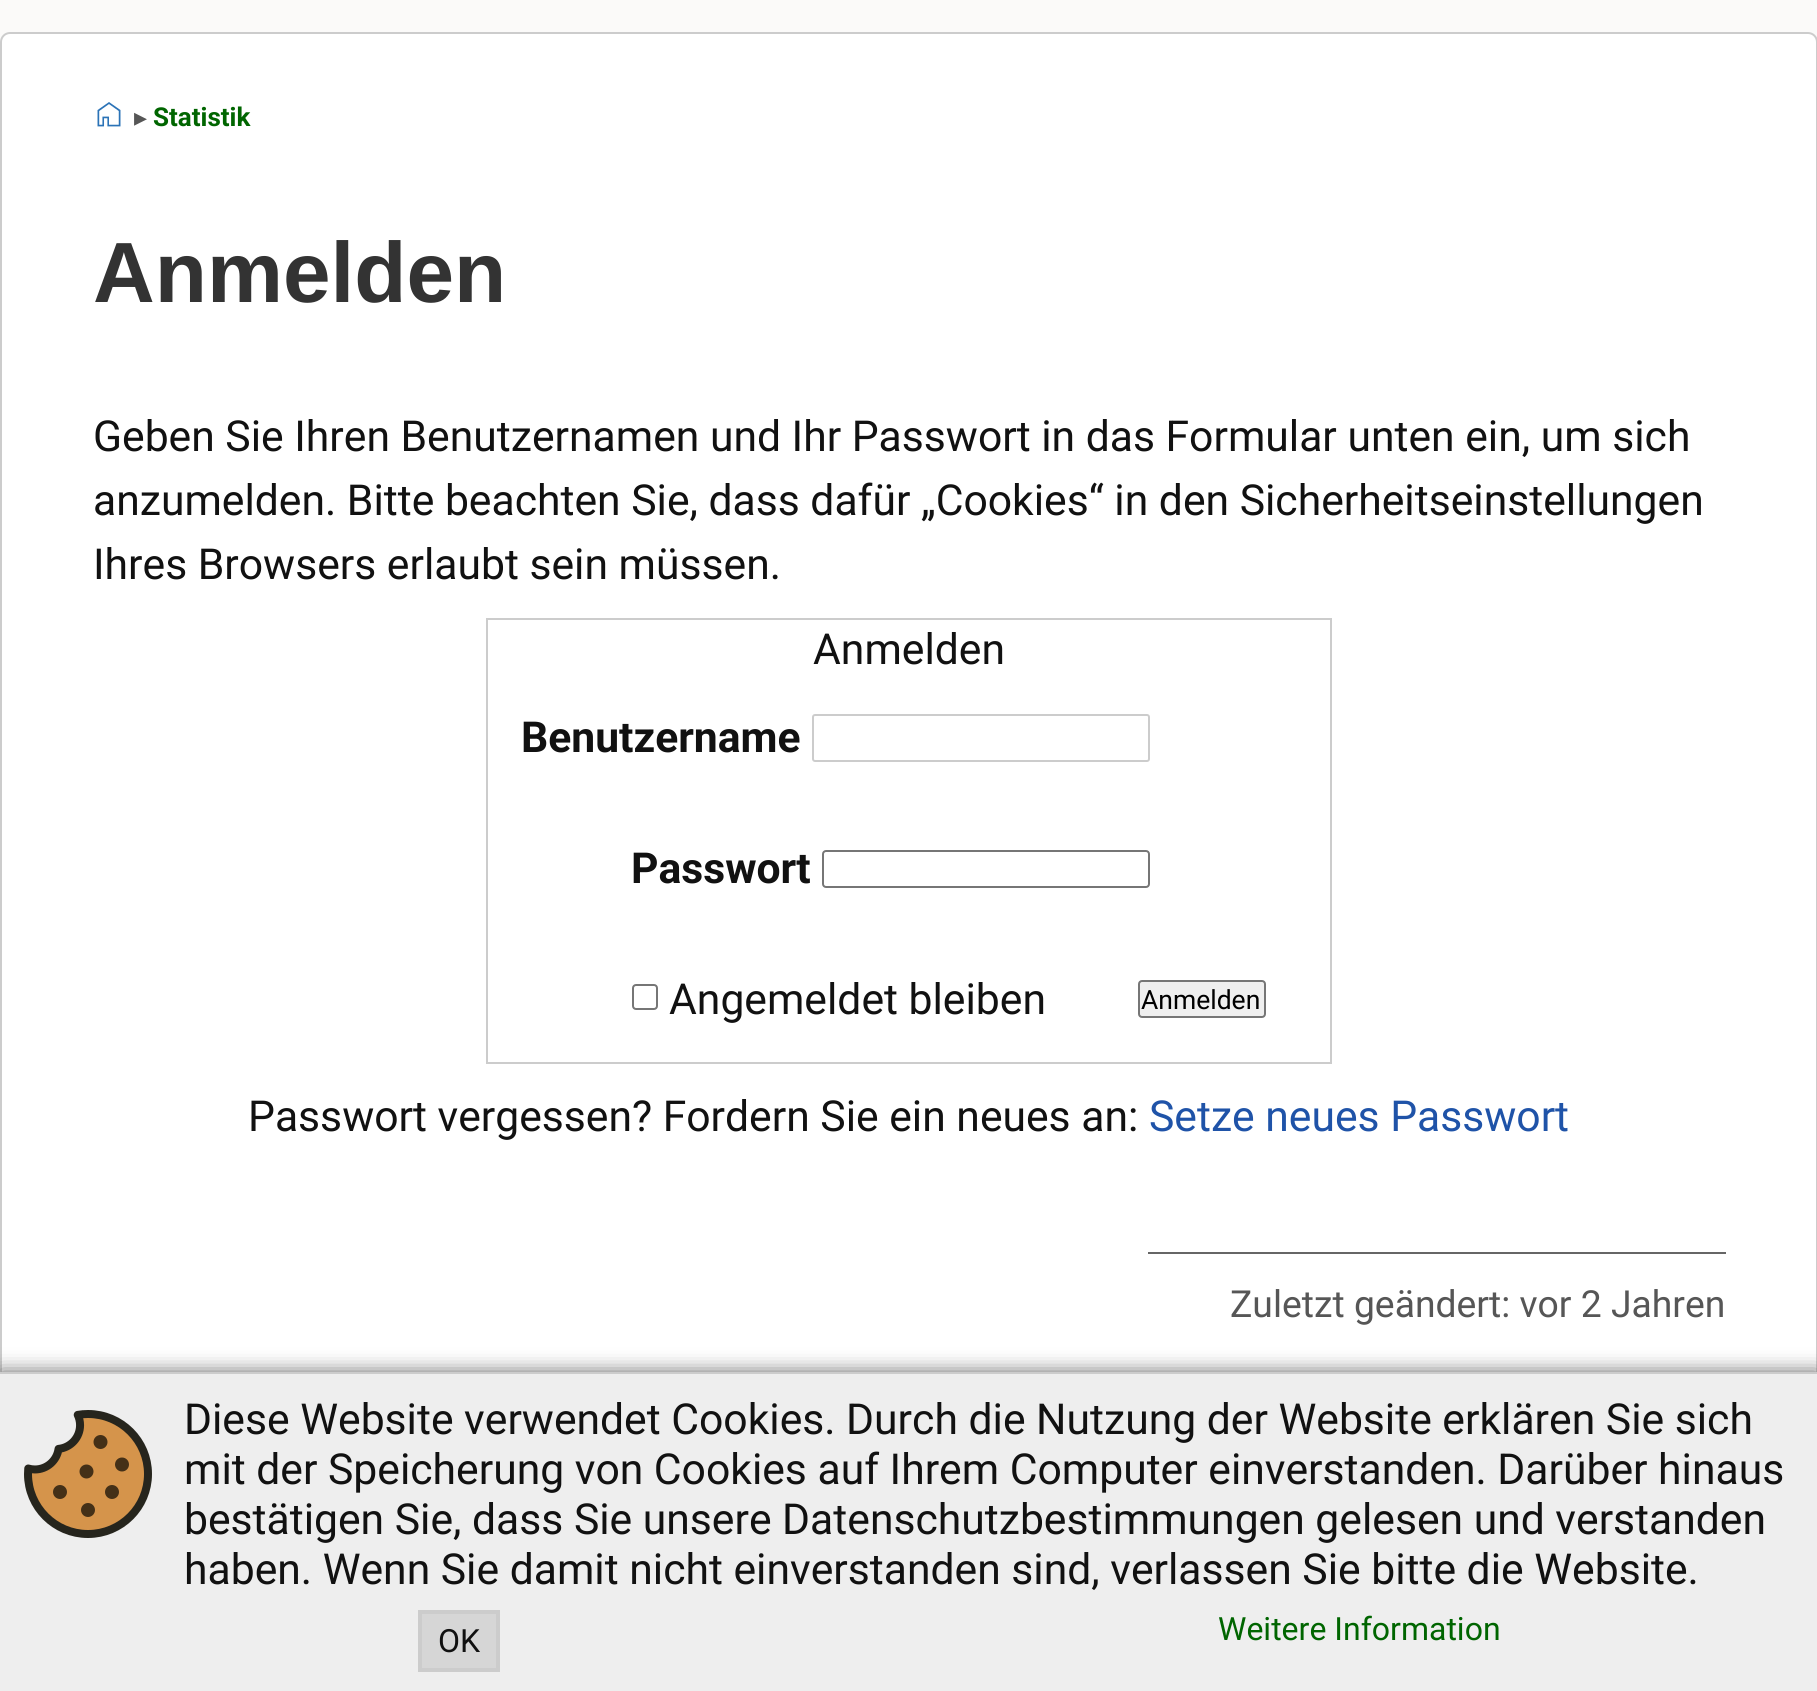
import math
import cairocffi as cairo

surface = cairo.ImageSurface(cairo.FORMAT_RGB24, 1817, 1691)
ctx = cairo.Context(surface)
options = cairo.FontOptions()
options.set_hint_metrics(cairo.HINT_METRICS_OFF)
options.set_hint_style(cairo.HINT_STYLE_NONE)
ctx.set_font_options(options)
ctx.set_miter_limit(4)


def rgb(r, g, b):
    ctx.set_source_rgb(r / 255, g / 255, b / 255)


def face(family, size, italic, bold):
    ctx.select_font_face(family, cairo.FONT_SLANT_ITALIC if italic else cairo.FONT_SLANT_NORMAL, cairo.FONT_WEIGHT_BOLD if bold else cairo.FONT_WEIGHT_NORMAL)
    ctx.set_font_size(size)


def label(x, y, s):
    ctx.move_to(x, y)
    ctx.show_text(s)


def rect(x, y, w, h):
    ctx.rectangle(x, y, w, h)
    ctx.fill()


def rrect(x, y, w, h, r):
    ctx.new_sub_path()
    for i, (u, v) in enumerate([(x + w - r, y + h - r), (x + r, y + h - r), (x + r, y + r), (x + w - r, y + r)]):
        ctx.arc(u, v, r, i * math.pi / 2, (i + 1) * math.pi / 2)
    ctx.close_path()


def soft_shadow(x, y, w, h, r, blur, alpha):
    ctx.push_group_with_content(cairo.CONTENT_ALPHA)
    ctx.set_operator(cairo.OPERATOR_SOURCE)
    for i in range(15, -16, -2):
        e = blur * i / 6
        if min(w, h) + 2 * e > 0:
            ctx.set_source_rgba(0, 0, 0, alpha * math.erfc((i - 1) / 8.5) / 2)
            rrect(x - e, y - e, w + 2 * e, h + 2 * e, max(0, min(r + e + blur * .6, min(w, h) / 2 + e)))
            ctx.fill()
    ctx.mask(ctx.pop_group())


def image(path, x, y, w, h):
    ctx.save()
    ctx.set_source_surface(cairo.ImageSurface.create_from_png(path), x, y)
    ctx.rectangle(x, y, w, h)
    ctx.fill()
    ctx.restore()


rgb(251, 250, 249)
ctx.paint()
rgb(255, 255, 255)
rrect(1, 33, 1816, 1356, 9)
ctx.fill_preserve()
rgb(204, 204, 204)
ctx.stroke()
image('image0.png', 97, 102, 24, 25)
face('DejaVu Sans', 26, 0, 0)
rgb(86, 86, 86)
label(134, 126, '▸')
face('Roboto', 26, 0, 1)
rgb(0, 101, 0)
label(153, 126, 'Statistik')
face('Liberation Sans', 85.5, 0, 1)
rgb(51, 51, 51)
label(93, 302, 'Anmelden')
face('Roboto', 42.65, 0, 0)
rgb(17, 17, 17)
label(93, 451, 'Geben Sie Ihren Benutzernamen und Ihr Passwort in das Formular unten ein, um sich')
label(93, 515, 'anzumelden. Bitte beachten Sie, dass dafür „Cookies“ in den Sicherheitseinstellungen')
label(93, 579, 'Ihres Browsers erlaubt sein müssen.')
ctx.rectangle(487, 619, 844, 444)
rgb(204, 204, 204)
ctx.stroke()
rgb(17, 17, 17)
label(813, 664, 'Anmelden')
face('Roboto', 42.65, 0, 1)
label(521, 752, 'Benutzername')
rrect(813, 715, 336, 46, 2)
rgb(204, 204, 204)
ctx.stroke()
rgb(17, 17, 17)
label(631, 883, 'Passwort')
rrect(823, 851, 326, 36, 3)
rgb(118, 118, 118)
ctx.stroke()
rrect(633, 985, 24, 24, 3)
ctx.stroke()
face('Roboto', 42.65, 0, 0)
rgb(17, 17, 17)
label(669, 1014, 'Angemeldet bleiben')
rgb(239, 239, 239)
rrect(1139, 981, 126, 36, 3)
ctx.fill_preserve()
rgb(118, 118, 118)
ctx.stroke()
face('Roboto', 26.5, 0, 0)
rgb(0, 0, 0)
label(1141, 1009, 'Anmelden')
face('Roboto', 42.65, 0, 0)
rgb(17, 17, 17)
label(248, 1131, 'Passwort vergessen? Fordern Sie ein neues an:')
rgb(31, 83, 168)
label(1149, 1131, 'Setze neues Passwort')
rgb(102, 102, 102)
rect(1148, 1252, 578, 2)
face('Roboto', 37.3, 0, 0)
rgb(86, 86, 86)
label(1230, 1317, 'Zuletzt geändert: vor 2 Jahren')
rgb(102, 102, 102)
soft_shadow(0, 1372, 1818, 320, 0, 10, 1)
rgb(238, 238, 238)
rect(0, 1374, 1817, 317)
rgb(204, 204, 204)
rect(0, 1372, 1817, 2)
image('image1.png', 24, 1410, 128, 128)
face('Roboto', 42.65, 0, 0)
rgb(17, 17, 17)
label(184, 1434, 'Diese Website verwendet Cookies. Durch die Nutzung der Website erklären Sie sich')
label(184, 1484, 'mit der Speicherung von Cookies auf Ihrem Computer einverstanden. Darüber hinaus')
label(184, 1534, 'bestätigen Sie, dass Sie unsere Datenschutzbestimmungen gelesen und verstanden')
label(184, 1584, 'haben. Wenn Sie damit nicht einverstanden sind, verlassen Sie bitte die Website.')
rgb(214, 214, 214)
ctx.rectangle(420, 1612, 78, 58)
ctx.fill_preserve()
rgb(204, 204, 204)
ctx.set_line_width(4)
ctx.stroke()
face('Roboto', 32, 0, 0)
rgb(17, 17, 17)
label(438, 1652, 'OK')
rgb(0, 101, 0)
label(1218, 1640, 'Weitere Information')
surface.write_to_png('render.png')
